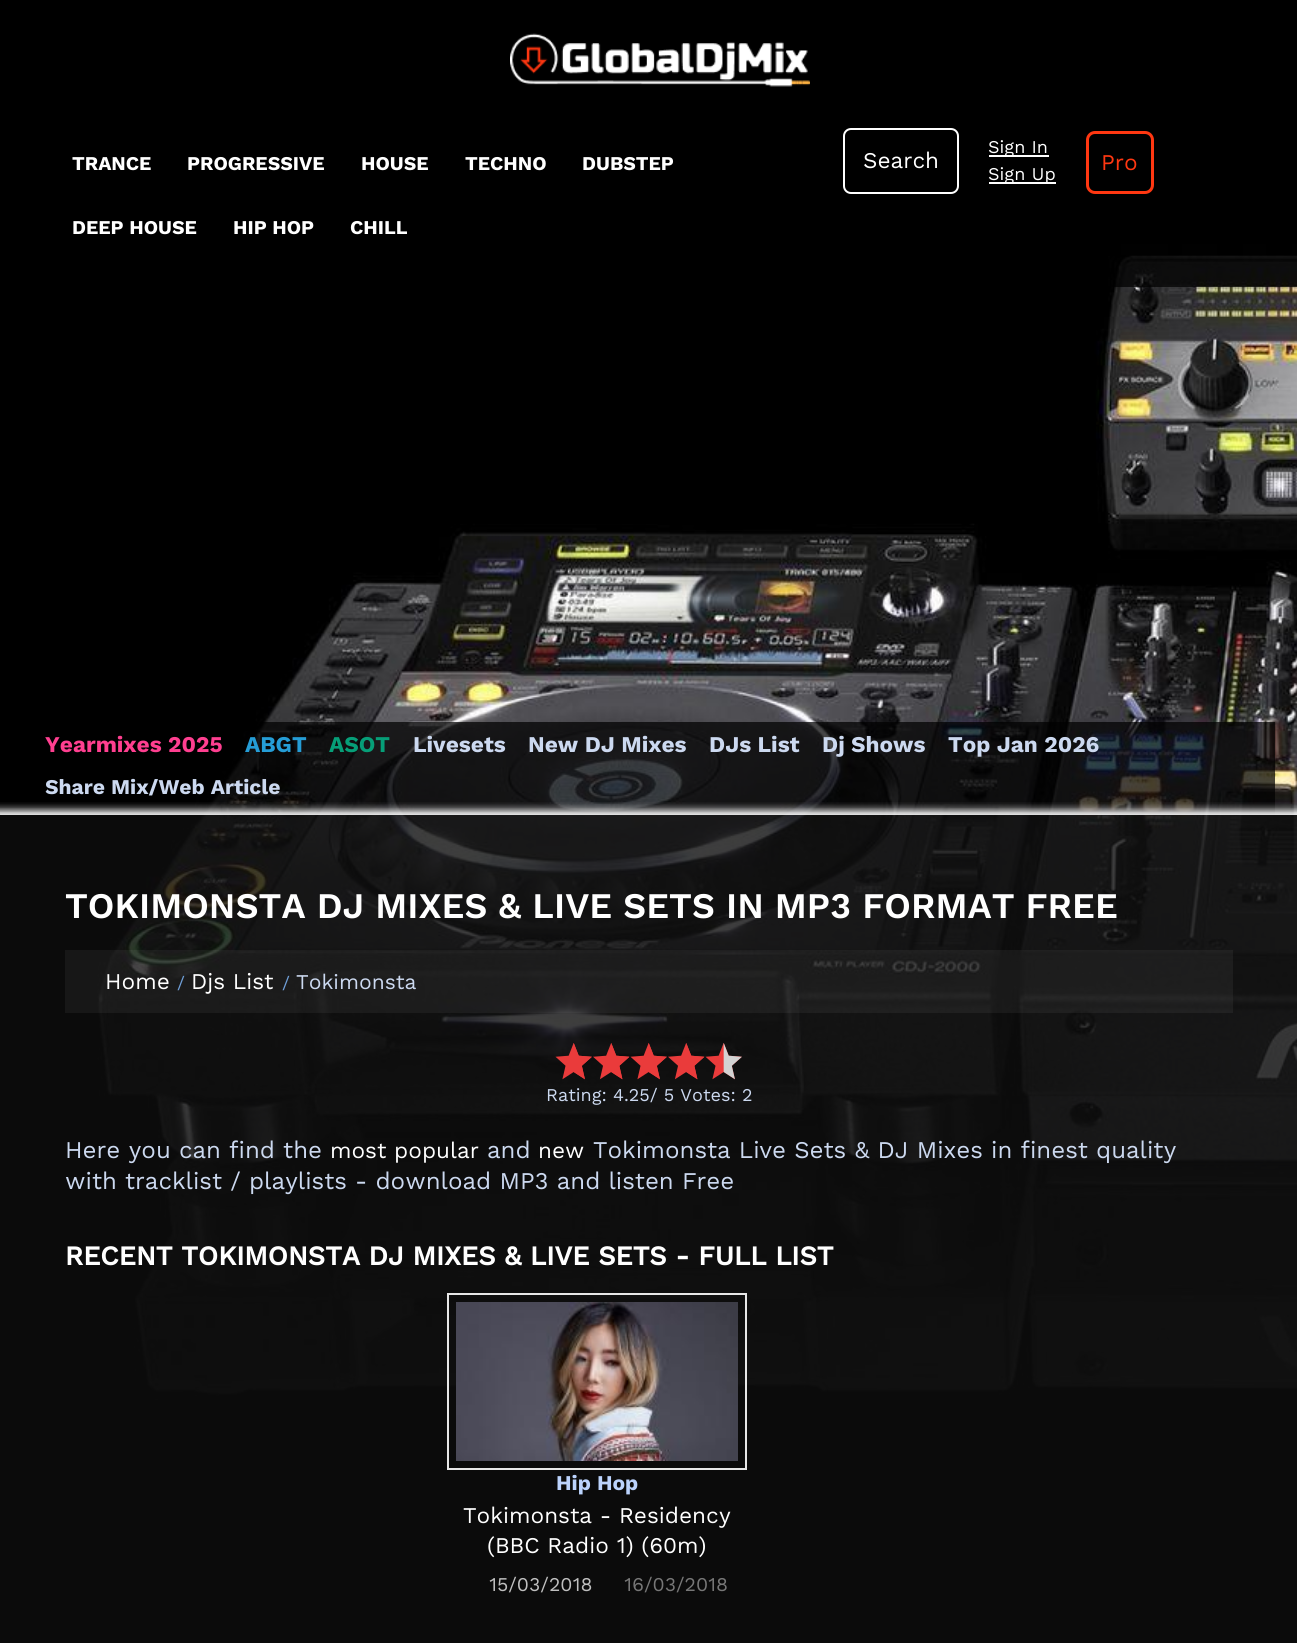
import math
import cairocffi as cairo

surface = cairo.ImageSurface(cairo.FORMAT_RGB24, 1297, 1643)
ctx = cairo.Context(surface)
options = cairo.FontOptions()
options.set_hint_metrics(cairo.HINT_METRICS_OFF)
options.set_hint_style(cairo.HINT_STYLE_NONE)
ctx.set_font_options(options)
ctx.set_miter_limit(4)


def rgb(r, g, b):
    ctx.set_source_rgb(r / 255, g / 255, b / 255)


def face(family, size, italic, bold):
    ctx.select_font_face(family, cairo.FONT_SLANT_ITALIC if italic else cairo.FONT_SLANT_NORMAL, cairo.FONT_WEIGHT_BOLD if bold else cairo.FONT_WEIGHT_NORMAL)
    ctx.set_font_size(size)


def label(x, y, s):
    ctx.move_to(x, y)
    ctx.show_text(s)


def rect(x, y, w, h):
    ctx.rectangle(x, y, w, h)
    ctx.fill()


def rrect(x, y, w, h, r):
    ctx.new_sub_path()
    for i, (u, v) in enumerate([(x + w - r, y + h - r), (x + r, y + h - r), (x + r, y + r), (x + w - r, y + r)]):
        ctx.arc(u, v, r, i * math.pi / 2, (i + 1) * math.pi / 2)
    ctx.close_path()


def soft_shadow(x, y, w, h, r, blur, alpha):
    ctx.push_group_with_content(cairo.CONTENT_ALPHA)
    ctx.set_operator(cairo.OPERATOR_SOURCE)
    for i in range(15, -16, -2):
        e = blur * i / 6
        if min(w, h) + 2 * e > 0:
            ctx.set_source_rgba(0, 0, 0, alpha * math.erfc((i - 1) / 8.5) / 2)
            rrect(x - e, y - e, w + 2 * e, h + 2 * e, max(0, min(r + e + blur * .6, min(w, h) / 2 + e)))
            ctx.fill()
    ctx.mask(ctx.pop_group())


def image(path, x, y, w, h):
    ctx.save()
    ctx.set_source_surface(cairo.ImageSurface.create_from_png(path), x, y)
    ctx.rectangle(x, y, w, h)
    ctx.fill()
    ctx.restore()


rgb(255, 255, 255)
ctx.paint()
image('image0.png', 0, 0, 1297, 1643)
ctx.set_source_rgba(0, 0, 0, 0.72)
rect(1108, 255, 189, 32)
image('image1.png', 510, 33, 300, 54)
face('Work Sans', 19.5, 0, 1)
rgb(255, 255, 255)
label(72, 170, 'TRANCE')
label(187, 170, 'PROGRESSIVE')
label(361, 170, 'HOUSE')
label(465, 170, 'TECHNO')
label(582, 170, 'DUBSTEP')
label(72, 234, 'DEEP HOUSE')
label(233, 234, 'HIP HOP')
label(350, 234, 'CHILL')
rrect(844, 129, 114, 64, 7)
ctx.stroke()
face('Work Sans', 22.5, 0, 0)
label(863, 168, 'Search')
rect(989, 155, 60, 2)
face('Work Sans', 18, 0, 0)
label(988, 153, 'Sign In')
rect(989, 182, 67, 2)
label(988, 180, 'Sign Up')
rrect(1087.5, 132.5, 65, 60, 7.5)
rgb(255, 55, 17)
ctx.set_line_width(3)
ctx.stroke()
face('Work Sans', 22.5, 0, 0)
label(1101, 170, 'Pro')
ctx.set_source_rgba(0, 0, 0, 0.72)
rect(199, 722, 1076, 93)
face('Work Sans', 22.5, 0, 1)
rgb(255, 63, 144)
label(45, 752, 'Yearmixes 2025')
rgb(37, 157, 214)
label(245, 752, 'ABGT')
rgb(6, 159, 120)
label(329, 752, 'ASOT')
rgb(204, 217, 240)
label(413, 752, 'Livesets')
label(528, 752, 'New DJ Mixes')
label(709, 752, 'DJs List')
label(822, 752, 'Dj Shows')
label(948, 752, 'Top Jan 2026')
face('Work Sans', 21, 0, 1)
label(45, 794, 'Share Mix/Web Article')
ctx.save()
ctx.rectangle(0, 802, 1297, 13)
ctx.clip()
rgb(255, 255, 255)
soft_shadow(-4, 810, 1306, 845, 0, 4, 1)
ctx.restore()
ctx.set_source_rgba(0.055, 0.055, 0.055, 0.8)
rect(0, 815, 1297, 828)
face('Work Sans SemiBold', 36, 0, 0)
rgb(255, 255, 255)
label(65, 918, 'TOKIMONSTA DJ MIXES & LIVE SETS IN MP3 FORMAT FREE')
ctx.set_source_rgba(0.78, 0.78, 0.78, 0.07)
rect(65, 950, 1168, 63)
face('Work Sans', 22.5, 0, 0)
rgb(255, 255, 255)
label(105, 989, 'Home')
face('Work Sans', 18, 0, 0)
rgb(111, 159, 216)
label(177, 989, '/')
face('Work Sans', 22.5, 0, 0)
rgb(255, 255, 255)
label(191, 989, 'Djs List')
face('Work Sans', 18, 0, 0)
rgb(111, 159, 216)
label(282, 989, '/')
face('Work Sans', 21, 0, 0)
rgb(204, 217, 240)
label(296, 989, 'Tokimonsta')
image('image2.png', 555, 1043, 37, 37)
image('image3.png', 593, 1043, 37, 37)
image('image4.png', 630, 1043, 37, 37)
image('image5.png', 668, 1043, 37, 37)
image('image6.png', 705, 1043, 37, 37)
face('Work Sans', 18, 0, 0)
label(546, 1101, 'Rating: 4.25/ 5 Votes: 2')
face('Work Sans', 24, 0, 0)
label(65, 1158, 'Here you can find the')
face('Work Sans', 22.5, 0, 0)
rgb(255, 255, 255)
label(330, 1158, 'most popular')
face('Work Sans', 24, 0, 0)
rgb(204, 217, 240)
label(487, 1158, 'and')
face('Work Sans', 22.5, 0, 0)
rgb(255, 255, 255)
label(538, 1158, 'new')
face('Work Sans', 24, 0, 0)
rgb(204, 217, 240)
label(593, 1158, 'Tokimonsta Live Sets & DJ Mixes in finest quality')
label(65, 1189, 'with tracklist / playlists - download MP3 and listen Free')
face('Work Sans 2', 27, 0, 1)
rgb(255, 255, 255)
label(65, 1265, 'RECENT TOKIMONSTA DJ MIXES & LIVE SETS - FULL LIST')
ctx.rectangle(448, 1294, 298, 175)
rgb(231, 231, 231)
ctx.set_line_width(2)
ctx.stroke()
image('image7.png', 456, 1302, 282, 159)
face('Work Sans', 21, 0, 1)
rgb(187, 211, 253)
label(556, 1490, 'Hip Hop')
face('Work Sans', 22.5, 0, 0)
rgb(255, 255, 255)
label(463, 1523, 'Tokimonsta - Residency')
label(487, 1553, '(BBC Radio 1) (60m)')
face('Work Sans', 19.5, 0, 0)
rgb(191, 191, 191)
label(489, 1591, '15/03/2018')
rgb(119, 119, 119)
label(624, 1591, '16/03/2018')
surface.write_to_png('render.png')
